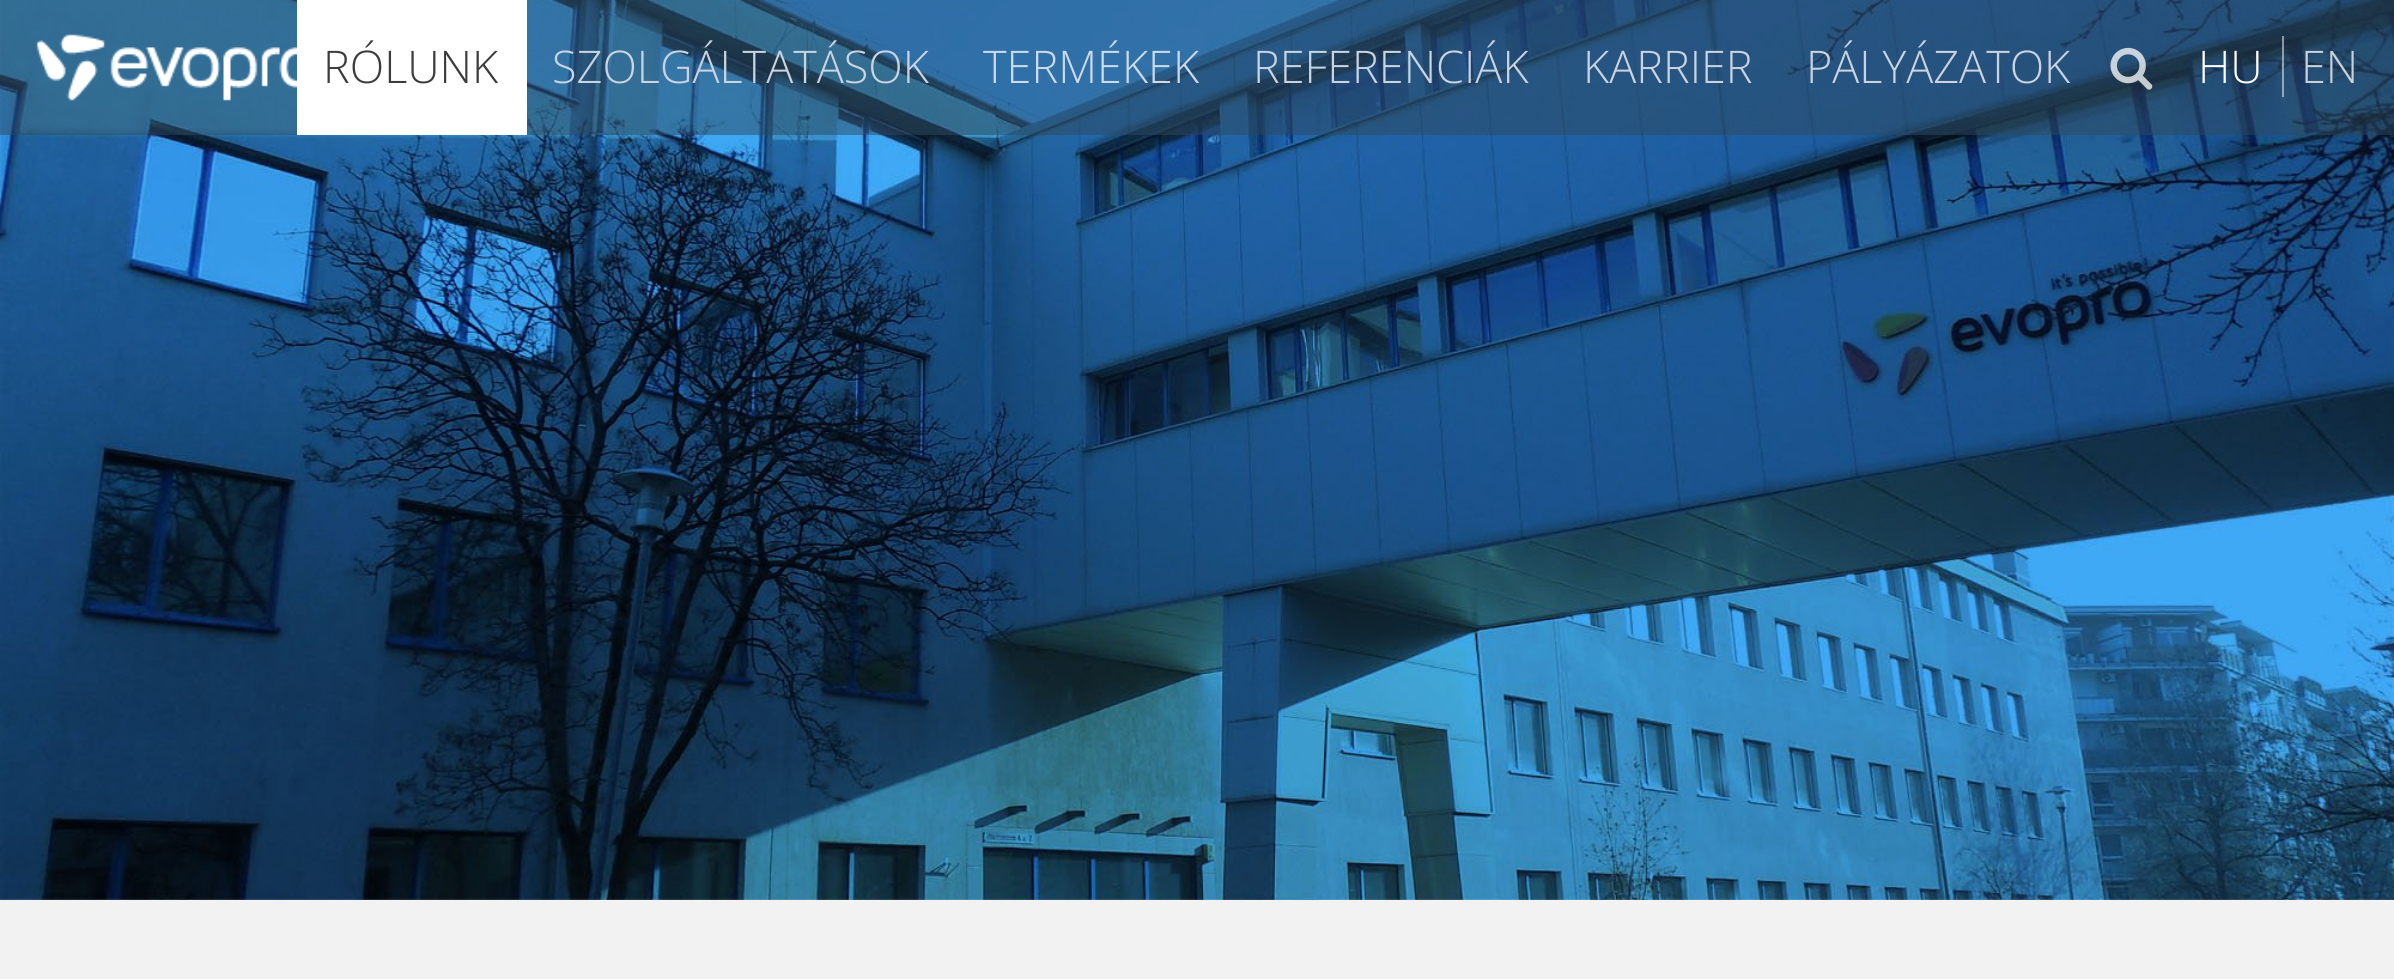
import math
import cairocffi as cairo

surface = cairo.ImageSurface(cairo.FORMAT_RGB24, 2394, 979)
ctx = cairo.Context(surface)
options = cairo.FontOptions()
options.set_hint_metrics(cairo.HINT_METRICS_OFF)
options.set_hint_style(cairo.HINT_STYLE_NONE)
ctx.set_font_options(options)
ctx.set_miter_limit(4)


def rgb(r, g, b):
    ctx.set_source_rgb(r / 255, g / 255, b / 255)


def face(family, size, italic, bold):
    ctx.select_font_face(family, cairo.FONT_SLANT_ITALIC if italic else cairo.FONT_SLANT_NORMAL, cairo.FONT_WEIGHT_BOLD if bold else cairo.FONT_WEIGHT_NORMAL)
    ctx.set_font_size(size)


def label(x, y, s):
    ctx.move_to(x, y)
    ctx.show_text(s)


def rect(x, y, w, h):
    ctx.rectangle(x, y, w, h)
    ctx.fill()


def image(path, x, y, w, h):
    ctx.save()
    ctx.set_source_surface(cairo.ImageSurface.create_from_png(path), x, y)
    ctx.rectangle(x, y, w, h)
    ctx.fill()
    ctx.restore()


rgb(255, 255, 255)
ctx.paint()
image('image0.png', 0, 0, 2394, 900)
ctx.set_source_rgba(0.18, 0.29, 0.373, 0.51)
rect(0, 0, 2394, 135)
image('image1.png', 36, 34, 261, 67)
rgb(255, 255, 255)
rect(297, 0, 230, 135)
face('Open Sans Light', 45, 0, 0)
rgb(60, 60, 60)
label(323, 83, 'RÓLUNK')
rgb(201, 212, 224)
label(552, 83, 'SZOLGÁLTATÁSOK')
rgb(203, 219, 232)
label(983, 83, 'TERMÉKEK')
rgb(201, 212, 224)
label(1253, 83, 'REFERENCIÁK')
label(1583, 83, 'KARRIER')
label(1806, 83, 'PÁLYÁZATOK')
image('image2.png', 2110, 47, 43, 43)
rgb(255, 255, 255)
label(2198, 83, 'HU')
ctx.set_source_rgba(1, 1, 1, 0.5)
rect(2282, 36, 2, 61)
rgb(200, 209, 217)
label(2301, 83, 'EN')
rgb(242, 242, 242)
rect(0, 900, 2394, 79)
surface.write_to_png('render.png')
